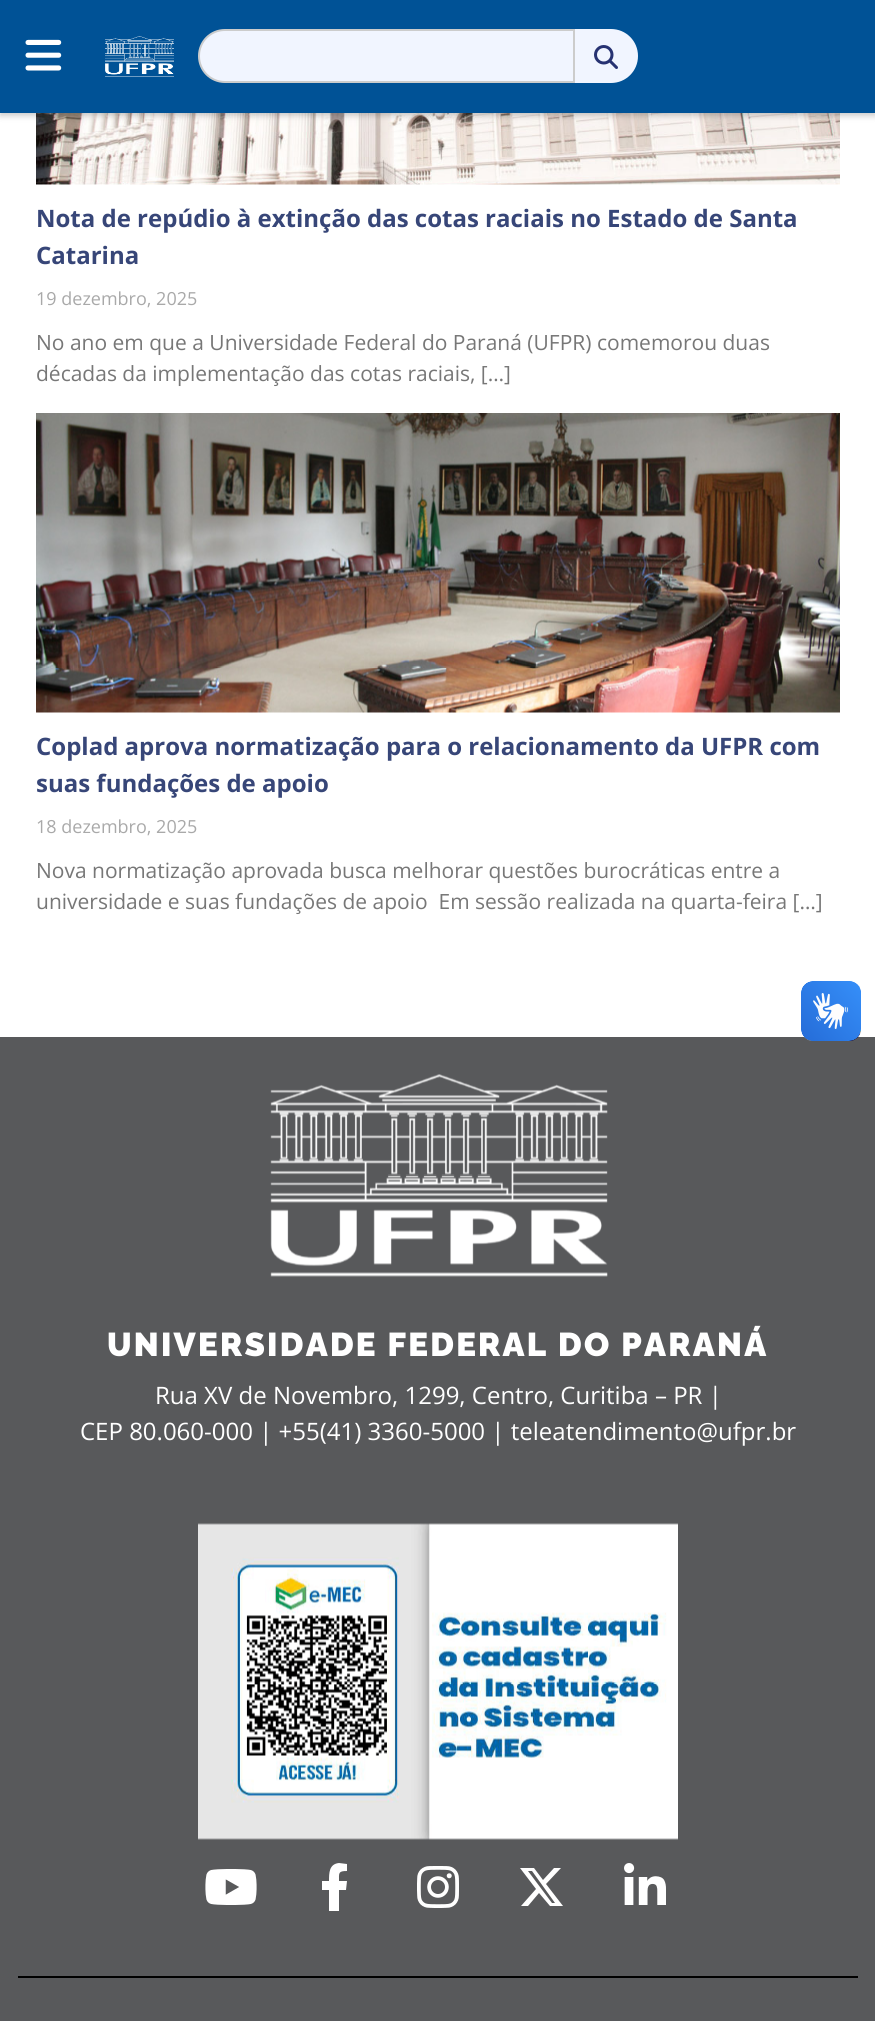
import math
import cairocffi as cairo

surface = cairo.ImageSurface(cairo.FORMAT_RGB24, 875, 2021)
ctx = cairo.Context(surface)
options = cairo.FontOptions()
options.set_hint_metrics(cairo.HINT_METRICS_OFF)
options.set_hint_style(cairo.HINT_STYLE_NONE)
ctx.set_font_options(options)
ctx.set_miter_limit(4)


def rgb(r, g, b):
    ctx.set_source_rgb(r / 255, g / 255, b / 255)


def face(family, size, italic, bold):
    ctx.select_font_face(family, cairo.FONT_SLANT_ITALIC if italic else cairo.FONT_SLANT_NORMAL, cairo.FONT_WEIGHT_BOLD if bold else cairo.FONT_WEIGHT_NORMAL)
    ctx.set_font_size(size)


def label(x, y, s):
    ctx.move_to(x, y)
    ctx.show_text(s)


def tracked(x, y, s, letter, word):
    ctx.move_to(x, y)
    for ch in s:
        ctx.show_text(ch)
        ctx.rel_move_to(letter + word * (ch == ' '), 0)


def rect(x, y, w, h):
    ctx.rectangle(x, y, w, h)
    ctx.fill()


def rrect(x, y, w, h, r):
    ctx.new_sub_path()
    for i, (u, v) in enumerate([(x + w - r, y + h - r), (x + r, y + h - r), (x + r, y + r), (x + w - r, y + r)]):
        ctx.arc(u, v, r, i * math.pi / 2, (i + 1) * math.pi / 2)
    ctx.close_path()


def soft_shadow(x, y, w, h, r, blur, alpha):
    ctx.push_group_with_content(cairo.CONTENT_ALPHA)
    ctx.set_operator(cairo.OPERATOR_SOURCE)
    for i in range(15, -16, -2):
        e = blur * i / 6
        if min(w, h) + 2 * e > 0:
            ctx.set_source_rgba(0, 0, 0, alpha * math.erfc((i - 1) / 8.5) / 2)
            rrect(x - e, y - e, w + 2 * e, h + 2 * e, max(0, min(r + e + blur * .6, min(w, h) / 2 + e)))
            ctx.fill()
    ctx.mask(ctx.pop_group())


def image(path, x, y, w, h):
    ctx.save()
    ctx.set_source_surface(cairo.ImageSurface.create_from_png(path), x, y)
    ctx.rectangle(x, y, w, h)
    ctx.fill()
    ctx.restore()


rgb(255, 255, 255)
ctx.paint()
image('image3.png', 36, 113, 804, 72)
rgb(0, 0, 0)
soft_shadow(0, 3, 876, 113, 0, 3, 0.2)
rgb(0, 82, 150)
rect(0, 0, 875, 113)
image('image0.png', 25, 39, 37, 32)
image('image1.png', 105, 36, 69, 41)
rgb(241, 245, 255)
ctx.new_path()
ctx.move_to(225, 30)
ctx.line_to(574, 30)
ctx.line_to(574, 82)
ctx.line_to(225, 82)
ctx.curve_to(210.5, 82, 199, 70.5, 199, 56)
ctx.curve_to(199, 41.5, 210.5, 30, 225, 30)
ctx.close_path()
ctx.fill_preserve()
rgb(204, 204, 204)
ctx.stroke()
rgb(241, 245, 255)
ctx.new_path()
ctx.move_to(575, 29)
ctx.line_to(611, 29)
ctx.curve_to(626, 29, 638, 41, 638, 56)
ctx.curve_to(638, 71, 626, 83, 611, 83)
ctx.line_to(575, 83)
ctx.close_path()
ctx.fill()
image('image2.png', 594, 45, 24, 24)
face('Open Sans', 24, 0, 1)
rgb(55, 70, 120)
label(36, 227, 'Nota de repúdio à extinção das cotas raciais no Estado de Santa')
label(36, 264, 'Catarina')
face('Open Sans', 18, 0, 0)
rgb(169, 169, 169)
label(36, 305, '19 dezembro, 2025')
face('Open Sans', 21, 0, 0)
rgb(119, 119, 119)
label(36, 350, 'No ano em que a Universidade Federal do Paraná (UFPR) comemorou duas')
label(36, 381, 'décadas da implementação das cotas raciais, […]')
image('image4.png', 36, 413, 804, 300)
face('Open Sans', 24, 0, 1)
rgb(55, 70, 120)
label(36, 755, 'Coplad aprova normatização para o relacionamento da UFPR com')
label(36, 792, 'suas fundações de apoio')
face('Open Sans', 18, 0, 0)
rgb(169, 169, 169)
label(36, 833, '18 dezembro, 2025')
face('Open Sans', 21, 0, 0)
rgb(119, 119, 119)
label(36, 878, 'Nova normatização aprovada busca melhorar questões burocráticas entre a')
label(36, 909, 'universidade e suas fundações de apoio  Em sessão realizada na quarta-feira […]')
rgb(88, 89, 91)
rect(0, 1037, 875, 984)
image('image5.png', 801, 981, 60, 60)
image('image6.png', 801, 981, 60, 60)
image('image7.png', 270, 1074, 338, 203)
face('Raleway Black', 33, 0, 0)
rgb(255, 255, 255)
tracked(107, 1356, 'UNIVERSIDADE FEDERAL DO PARANÁ', 2.25, 0)
face('Open Sans', 24, 0, 0)
label(155, 1404, 'Rua XV de Novembro, 1299, Centro, Curitiba – PR |')
label(80, 1440, 'CEP 80.060-000 | +55(41) 3360-5000 | teleatendimento@ufpr.br')
image('image8.png', 198, 1523, 480, 317)
image('image9.png', 205, 1869, 52, 36)
ctx.new_path()
ctx.move_to(346, 1890)
ctx.line_to(347, 1881)
ctx.line_to(339, 1881)
ctx.curve_to(339, 1873, 338, 1871, 347, 1871)
ctx.line_to(347, 1864)
ctx.line_to(339, 1863)
ctx.curve_to(329, 1864, 329, 1873, 329, 1881)
ctx.line_to(322, 1881)
ctx.line_to(322, 1890)
ctx.line_to(329, 1890)
ctx.line_to(329, 1911)
ctx.line_to(339, 1911)
ctx.line_to(339, 1890)
ctx.close_path()
ctx.fill()
image('image10.png', 417, 1866, 42, 42)
ctx.new_path()
ctx.move_to(554, 1868)
ctx.line_to(561, 1868)
ctx.line_to(546, 1884)
ctx.line_to(563, 1906)
ctx.line_to(550, 1906)
ctx.line_to(539, 1893)
ctx.line_to(528, 1906)
ctx.line_to(521, 1906)
ctx.line_to(536, 1889)
ctx.line_to(520, 1868)
ctx.line_to(534, 1868)
ctx.line_to(543, 1880)
ctx.close_path()
ctx.move_to(552, 1903)
ctx.line_to(555, 1903)
ctx.line_to(532, 1871)
ctx.line_to(528, 1871)
ctx.close_path()
ctx.fill()
image('image11.png', 624, 1863, 42, 42)
rgb(0, 0, 0)
rect(18, 1976, 840, 2)
surface.write_to_png('render.png')
